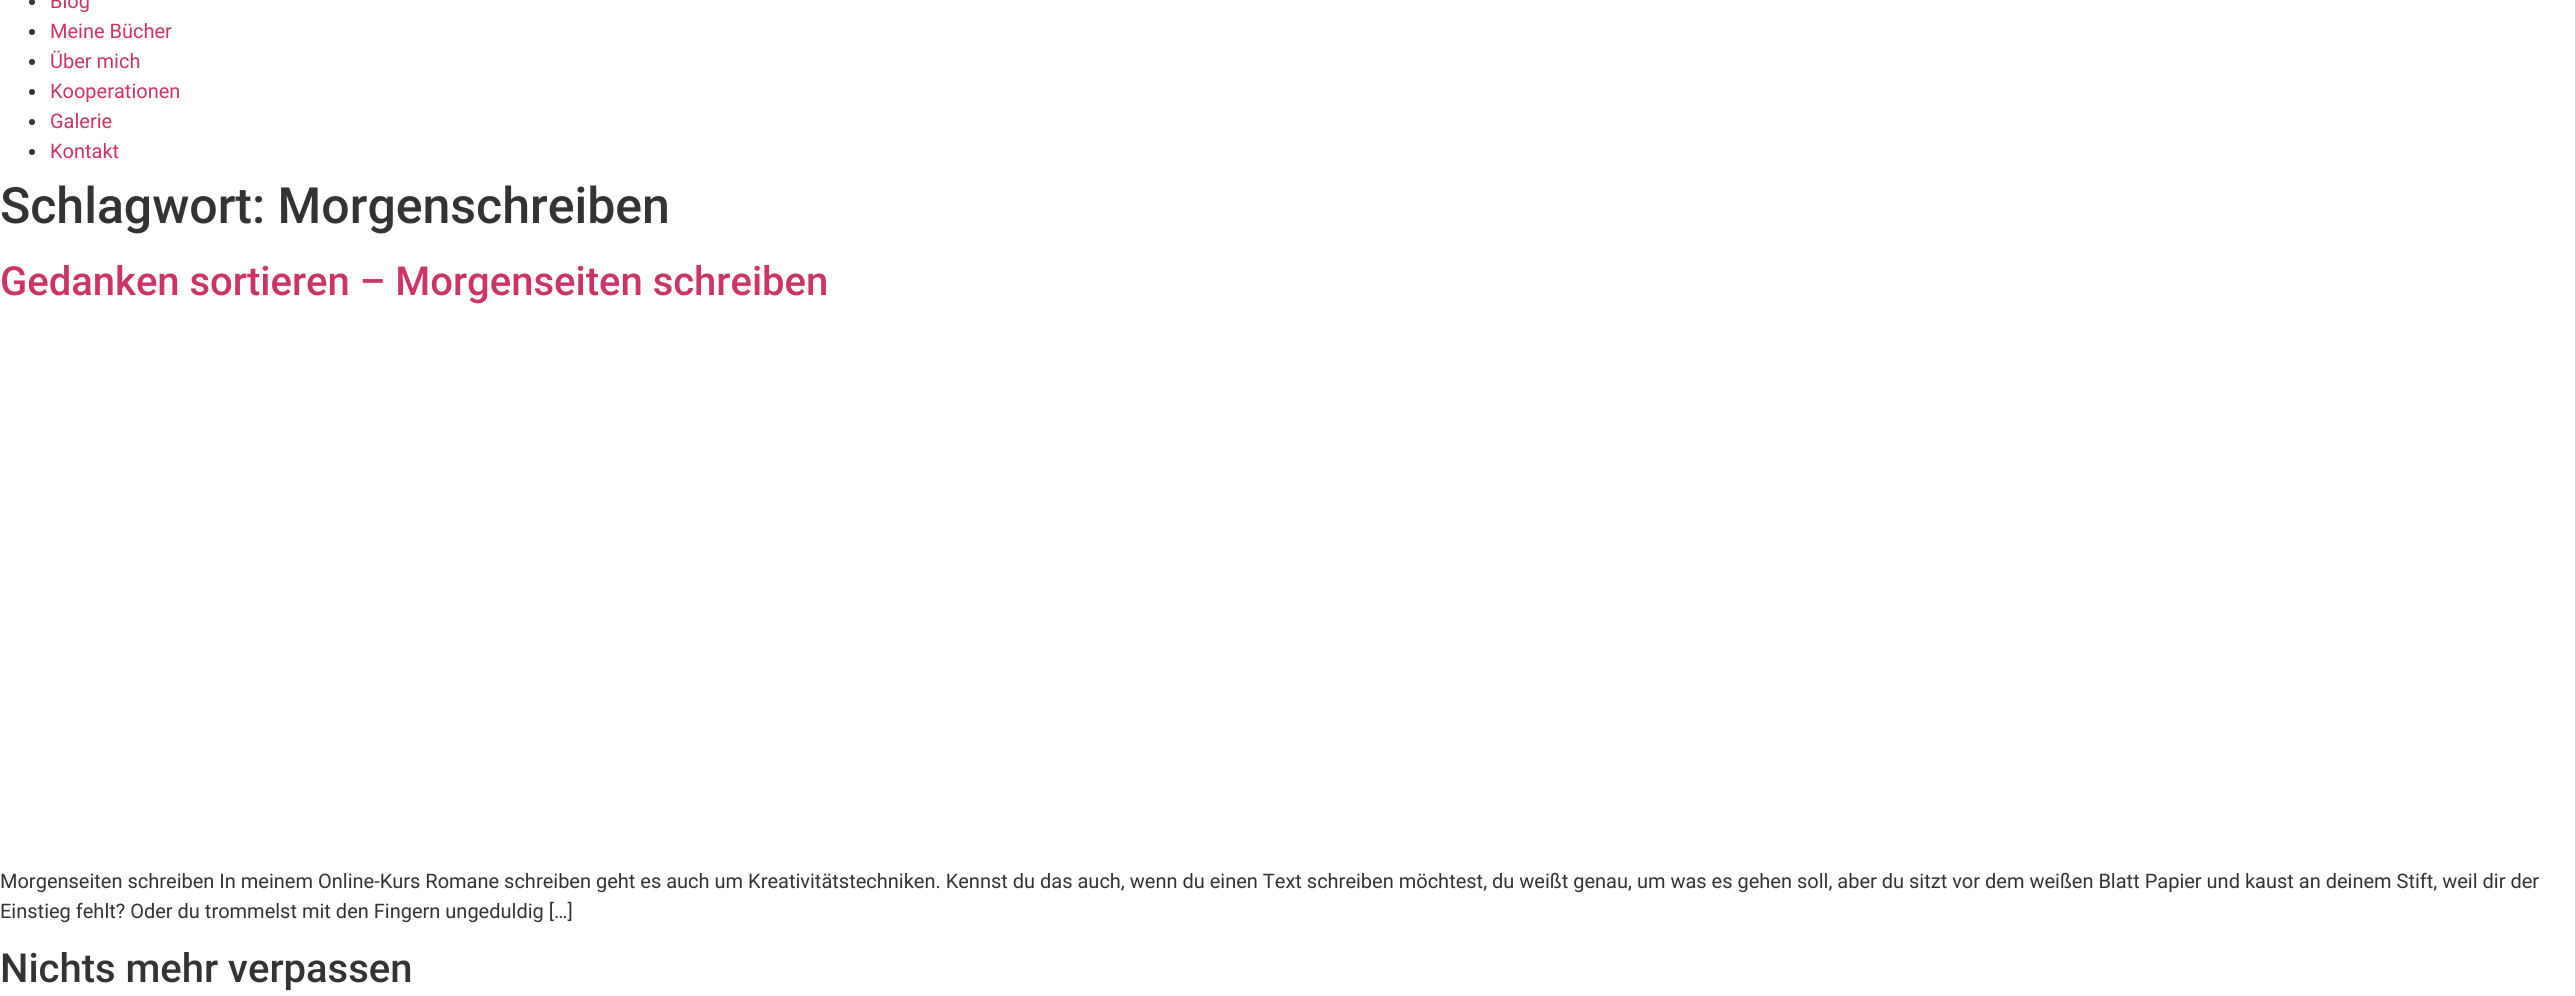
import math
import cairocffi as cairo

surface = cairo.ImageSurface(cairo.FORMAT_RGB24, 2575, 996)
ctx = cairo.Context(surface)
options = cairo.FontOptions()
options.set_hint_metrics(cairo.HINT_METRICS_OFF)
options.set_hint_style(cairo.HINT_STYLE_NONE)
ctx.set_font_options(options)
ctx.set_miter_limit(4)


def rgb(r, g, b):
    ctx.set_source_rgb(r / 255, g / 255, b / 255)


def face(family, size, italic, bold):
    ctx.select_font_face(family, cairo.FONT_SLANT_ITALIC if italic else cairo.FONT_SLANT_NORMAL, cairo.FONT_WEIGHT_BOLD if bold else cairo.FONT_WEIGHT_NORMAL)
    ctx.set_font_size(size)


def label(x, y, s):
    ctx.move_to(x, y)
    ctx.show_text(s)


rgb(255, 255, 255)
ctx.paint()
rgb(51, 51, 51)
ctx.arc(32, 2, 3, 0, 2 * math.pi)
ctx.fill()
face('Roboto', 20, 0, 0)
rgb(204, 51, 102)
label(50, 8, 'Blog')
rgb(51, 51, 51)
ctx.new_path()
ctx.arc(32, 32, 3, 0, 2 * math.pi)
ctx.fill()
rgb(204, 51, 102)
label(50, 38, 'Meine Bücher')
rgb(51, 51, 51)
ctx.new_path()
ctx.arc(32, 62, 3, 0, 2 * math.pi)
ctx.fill()
rgb(204, 51, 102)
label(50, 68, 'Über mich')
rgb(51, 51, 51)
ctx.new_path()
ctx.arc(32, 92, 3, 0, 2 * math.pi)
ctx.fill()
rgb(204, 51, 102)
label(50, 98, 'Kooperationen')
rgb(51, 51, 51)
ctx.new_path()
ctx.arc(32, 122, 3, 0, 2 * math.pi)
ctx.fill()
rgb(204, 51, 102)
label(50, 128, 'Galerie')
rgb(51, 51, 51)
ctx.new_path()
ctx.arc(32, 152, 3, 0, 2 * math.pi)
ctx.fill()
rgb(204, 51, 102)
label(50, 158, 'Kontakt')
face('Roboto Medium', 50, 0, 0)
rgb(51, 51, 51)
label(0, 223, 'Schlagwort: Morgenschreiben')
face('Roboto Medium', 40, 0, 0)
rgb(204, 51, 102)
label(0, 295, 'Gedanken sortieren – Morgenseiten schreiben')
face('Roboto', 20, 0, 0)
rgb(51, 51, 51)
label(0, 888, 'Morgenseiten schreiben In meinem Online-Kurs Romane schreiben geht es auch um Kreativitätstechniken. Kennst du das auch, wenn du einen Text schreiben möchtest, du weißt genau, um was es gehen soll, aber du sitzt vor dem weißen Blatt Papier und kaust an deinem Stift, weil dir der')
label(0, 918, 'Einstieg fehlt? Oder du trommelst mit den Fingern ungeduldig […]')
face('Roboto Medium', 40, 0, 0)
label(0, 982, 'Nichts mehr verpassen')
surface.write_to_png('render.png')
